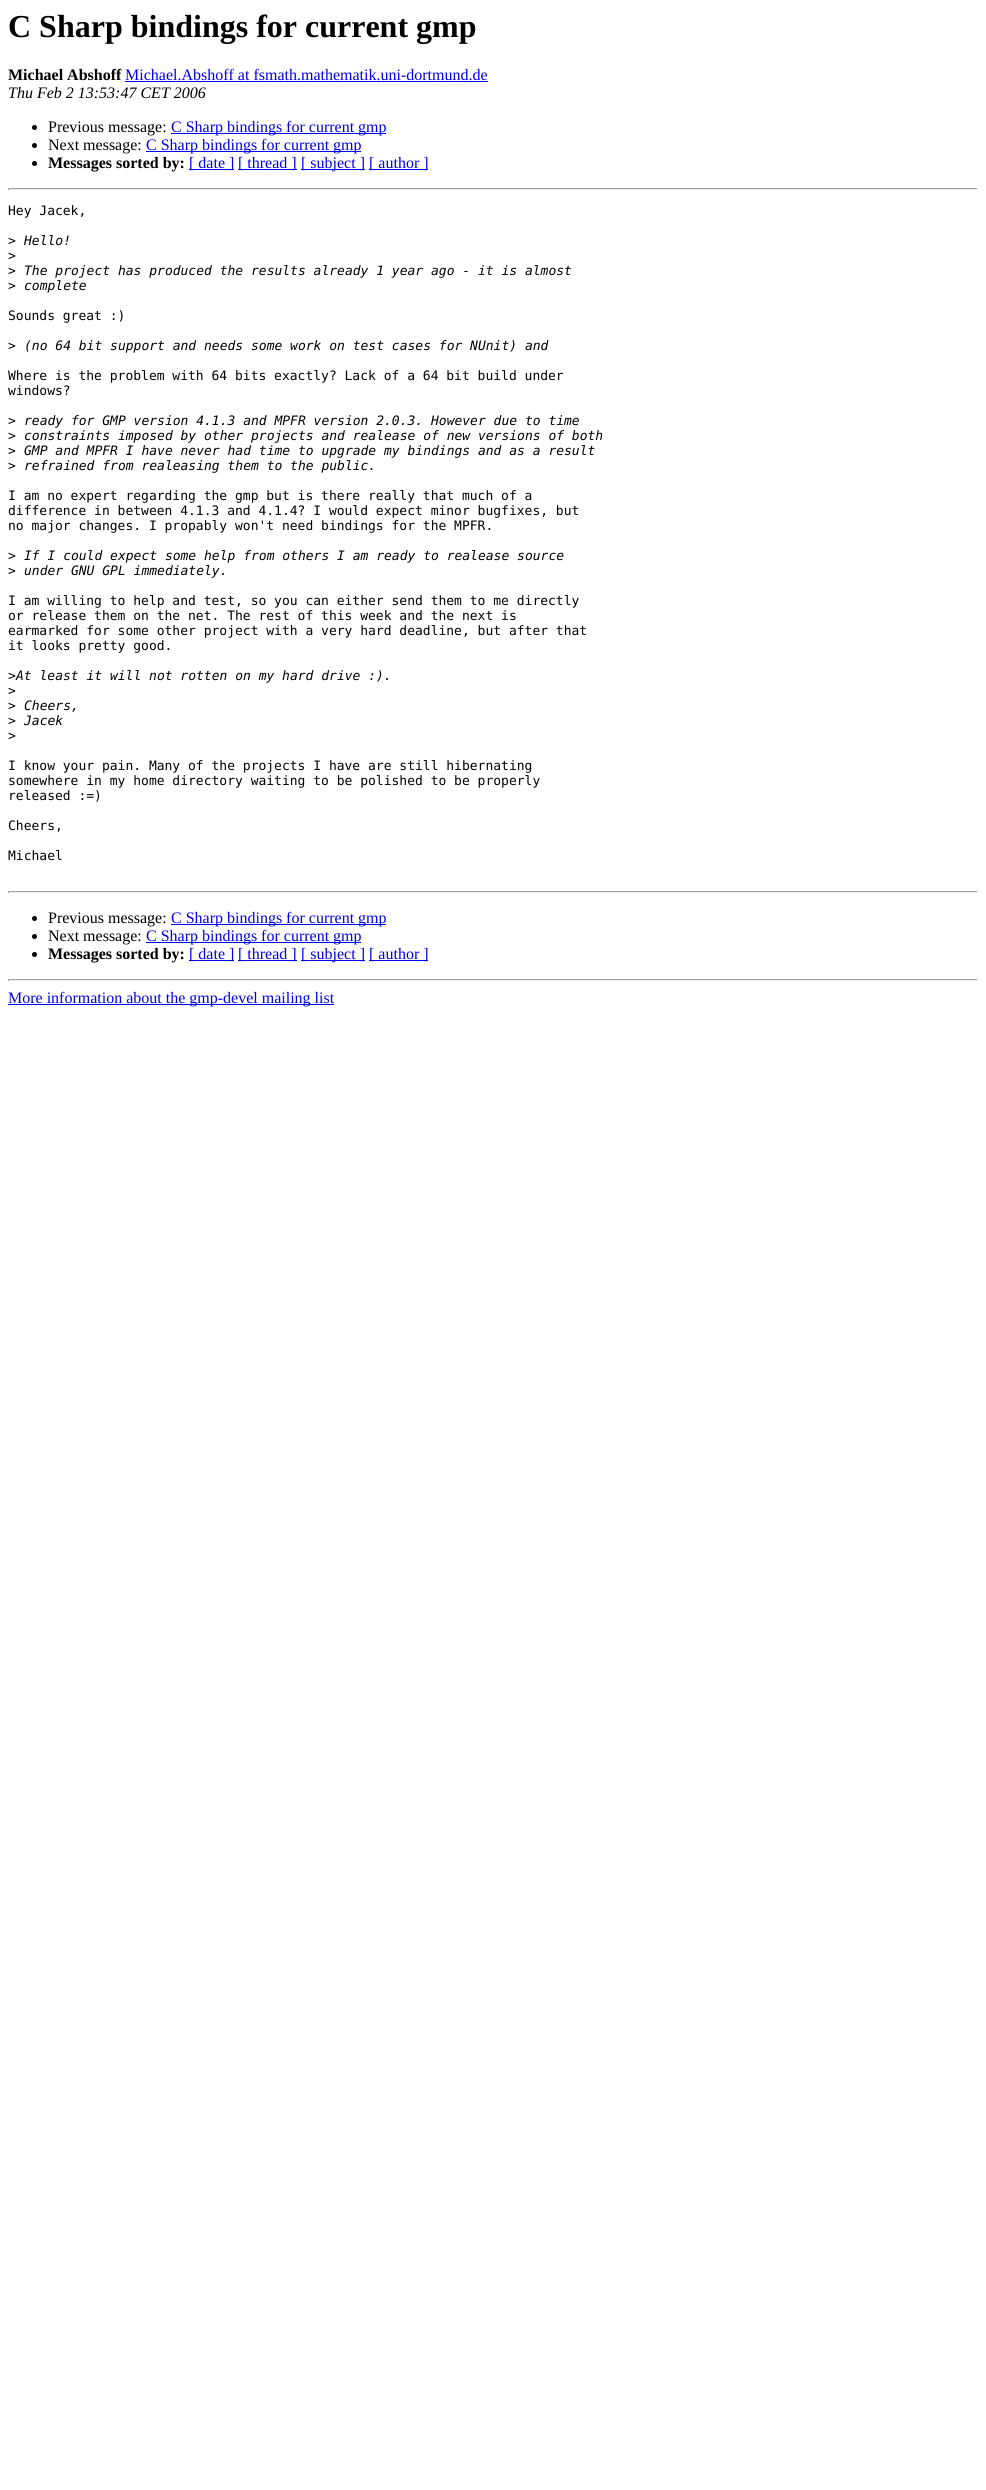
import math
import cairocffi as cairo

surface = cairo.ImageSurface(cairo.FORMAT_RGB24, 986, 2490)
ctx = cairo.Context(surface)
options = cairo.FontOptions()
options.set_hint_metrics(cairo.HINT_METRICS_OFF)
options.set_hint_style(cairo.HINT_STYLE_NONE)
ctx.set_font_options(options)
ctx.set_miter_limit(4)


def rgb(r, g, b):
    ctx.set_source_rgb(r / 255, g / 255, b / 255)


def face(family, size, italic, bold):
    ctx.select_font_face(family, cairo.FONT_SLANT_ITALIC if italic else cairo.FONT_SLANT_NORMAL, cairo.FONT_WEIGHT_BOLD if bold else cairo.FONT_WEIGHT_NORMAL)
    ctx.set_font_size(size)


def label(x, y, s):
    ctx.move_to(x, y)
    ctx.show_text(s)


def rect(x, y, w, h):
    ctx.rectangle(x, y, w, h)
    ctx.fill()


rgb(255, 255, 255)
ctx.paint()
face('Liberation Serif', 32, 0, 1)
rgb(0, 0, 0)
label(8, 37, 'C Sharp bindings for current gmp')
face('Liberation Serif', 16, 0, 1)
label(8, 80, 'Michael Abshoff')
face('Liberation Serif', 16, 0, 0)
rgb(0, 0, 238)
label(125, 80, 'Michael.Abshoff at fsmath.mathematik.uni-dortmund.de')
rect(125, 81, 363, 1)
face('Liberation Serif', 16, 1, 0)
rgb(0, 0, 0)
label(8, 98, 'Thu Feb 2 13:53:47 CET 2006')
ctx.new_path()
ctx.arc(34.5, 127.5, 2.5, 0, 2 * math.pi)
ctx.fill()
face('Liberation Serif', 16, 0, 0)
label(48, 132, 'Previous message:')
rgb(0, 0, 238)
rect(171, 133, 215, 1)
label(171, 132, 'C Sharp bindings for current gmp')
rgb(0, 0, 0)
ctx.new_path()
ctx.arc(34.5, 145.5, 2.5, 0, 2 * math.pi)
ctx.fill()
label(48, 150, 'Next message:')
rgb(0, 0, 238)
rect(146, 151, 215, 1)
label(146, 150, 'C Sharp bindings for current gmp')
rgb(0, 0, 0)
ctx.new_path()
ctx.arc(34.5, 163.5, 2.5, 0, 2 * math.pi)
ctx.fill()
face('Liberation Serif', 16, 0, 1)
label(48, 168, 'Messages sorted by:')
rgb(0, 0, 238)
rect(189, 169, 45, 1)
face('Liberation Serif', 16, 0, 0)
label(189, 168, '[ date ]')
rect(238, 169, 59, 1)
label(238, 168, '[ thread ]')
rect(301, 169, 64, 1)
label(301, 168, '[ subject ]')
rect(369, 169, 59, 1)
label(369, 168, '[ author ]')
rgb(159, 159, 159)
rect(8, 188, 970, 1)
rgb(238, 238, 238)
rect(977, 188, 1, 2)
rect(8, 189, 970, 1)
rgb(159, 159, 159)
rect(8, 188, 1, 2)
face('DejaVu Sans Mono', 13, 0, 0)
rgb(0, 0, 0)
label(8, 215, 'Hey Jacek,')
label(8, 245, '>')
face('DejaVu Sans Mono', 13, 1, 0)
label(24, 245, 'Hello!')
face('DejaVu Sans Mono', 13, 0, 0)
label(8, 260, '>')
label(8, 275, '>')
face('DejaVu Sans Mono', 13, 1, 0)
label(24, 275, 'The project has produced the results already 1 year ago - it is almost')
face('DejaVu Sans Mono', 13, 0, 0)
label(8, 290, '>')
face('DejaVu Sans Mono', 13, 1, 0)
label(24, 290, 'complete')
face('DejaVu Sans Mono', 13, 0, 0)
label(8, 320, 'Sounds great :)')
label(8, 350, '>')
face('DejaVu Sans Mono', 13, 1, 0)
label(24, 350, '(no 64 bit support and needs some work on test cases for NUnit) and')
face('DejaVu Sans Mono', 13, 0, 0)
label(8, 380, 'Where is the problem with 64 bits exactly? Lack of a 64 bit build under')
label(8, 395, 'windows?')
label(8, 425, '>')
face('DejaVu Sans Mono', 13, 1, 0)
label(24, 425, 'ready for GMP version 4.1.3 and MPFR version 2.0.3. However due to time')
face('DejaVu Sans Mono', 13, 0, 0)
label(8, 440, '>')
face('DejaVu Sans Mono', 13, 1, 0)
label(24, 440, 'constraints imposed by other projects and realease of new versions of both')
face('DejaVu Sans Mono', 13, 0, 0)
label(8, 455, '>')
face('DejaVu Sans Mono', 13, 1, 0)
label(24, 455, 'GMP and MPFR I have never had time to upgrade my bindings and as a result')
face('DejaVu Sans Mono', 13, 0, 0)
label(8, 470, '>')
face('DejaVu Sans Mono', 13, 1, 0)
label(24, 470, 'refrained from realeasing them to the public.')
face('DejaVu Sans Mono', 13, 0, 0)
label(8, 500, 'I am no expert regarding the gmp but is there really that much of a')
label(8, 515, 'difference in between 4.1.3 and 4.1.4? I would expect minor bugfixes, but')
label(8, 530, 'no major changes. I propably won\'t need bindings for the MPFR.')
label(8, 560, '>')
face('DejaVu Sans Mono', 13, 1, 0)
label(24, 560, 'If I could expect some help from others I am ready to realease source')
face('DejaVu Sans Mono', 13, 0, 0)
label(8, 575, '>')
face('DejaVu Sans Mono', 13, 1, 0)
label(24, 575, 'under GNU GPL immediately.')
face('DejaVu Sans Mono', 13, 0, 0)
label(8, 605, 'I am willing to help and test, so you can either send them to me directly')
label(8, 620, 'or release them on the net. The rest of this week and the next is')
label(8, 635, 'earmarked for some other project with a very hard deadline, but after that')
label(8, 650, 'it looks pretty good.')
label(8, 680, '>')
face('DejaVu Sans Mono', 13, 1, 0)
label(16, 680, 'At least it will not rotten on my hard drive :).')
face('DejaVu Sans Mono', 13, 0, 0)
label(8, 695, '>')
label(8, 710, '>')
face('DejaVu Sans Mono', 13, 1, 0)
label(24, 710, 'Cheers,')
face('DejaVu Sans Mono', 13, 0, 0)
label(8, 725, '>')
face('DejaVu Sans Mono', 13, 1, 0)
label(24, 725, 'Jacek')
face('DejaVu Sans Mono', 13, 0, 0)
label(8, 740, '>')
label(8, 770, 'I know your pain. Many of the projects I have are still hibernating')
label(8, 785, 'somewhere in my home directory waiting to be polished to be properly')
label(8, 800, 'released :=)')
label(8, 830, 'Cheers,')
label(8, 860, 'Michael')
rgb(159, 159, 159)
rect(8, 891, 970, 1)
rgb(238, 238, 238)
rect(977, 891, 1, 2)
rect(8, 892, 970, 1)
rgb(159, 159, 159)
rect(8, 891, 1, 2)
rgb(0, 0, 0)
ctx.new_path()
ctx.arc(34.5, 918.5, 2.5, 0, 2 * math.pi)
ctx.fill()
face('Liberation Serif', 16, 0, 0)
label(48, 923, 'Previous message:')
rgb(0, 0, 238)
rect(171, 924, 215, 1)
label(171, 923, 'C Sharp bindings for current gmp')
rgb(0, 0, 0)
ctx.new_path()
ctx.arc(34.5, 936.5, 2.5, 0, 2 * math.pi)
ctx.fill()
label(48, 941, 'Next message:')
rgb(0, 0, 238)
rect(146, 942, 215, 1)
label(146, 941, 'C Sharp bindings for current gmp')
rgb(0, 0, 0)
ctx.new_path()
ctx.arc(34.5, 954.5, 2.5, 0, 2 * math.pi)
ctx.fill()
face('Liberation Serif', 16, 0, 1)
label(48, 959, 'Messages sorted by:')
rgb(0, 0, 238)
rect(189, 960, 45, 1)
face('Liberation Serif', 16, 0, 0)
label(189, 959, '[ date ]')
rect(238, 960, 59, 1)
label(238, 959, '[ thread ]')
rect(301, 960, 64, 1)
label(301, 959, '[ subject ]')
rect(369, 960, 59, 1)
label(369, 959, '[ author ]')
rgb(159, 159, 159)
rect(8, 979, 970, 1)
rgb(238, 238, 238)
rect(977, 979, 1, 2)
rect(8, 980, 970, 1)
rgb(159, 159, 159)
rect(8, 979, 1, 2)
rgb(0, 0, 238)
rect(8, 1004, 326, 1)
label(8, 1003, 'More information about the gmp-devel mailing list')
surface.write_to_png('render.png')
